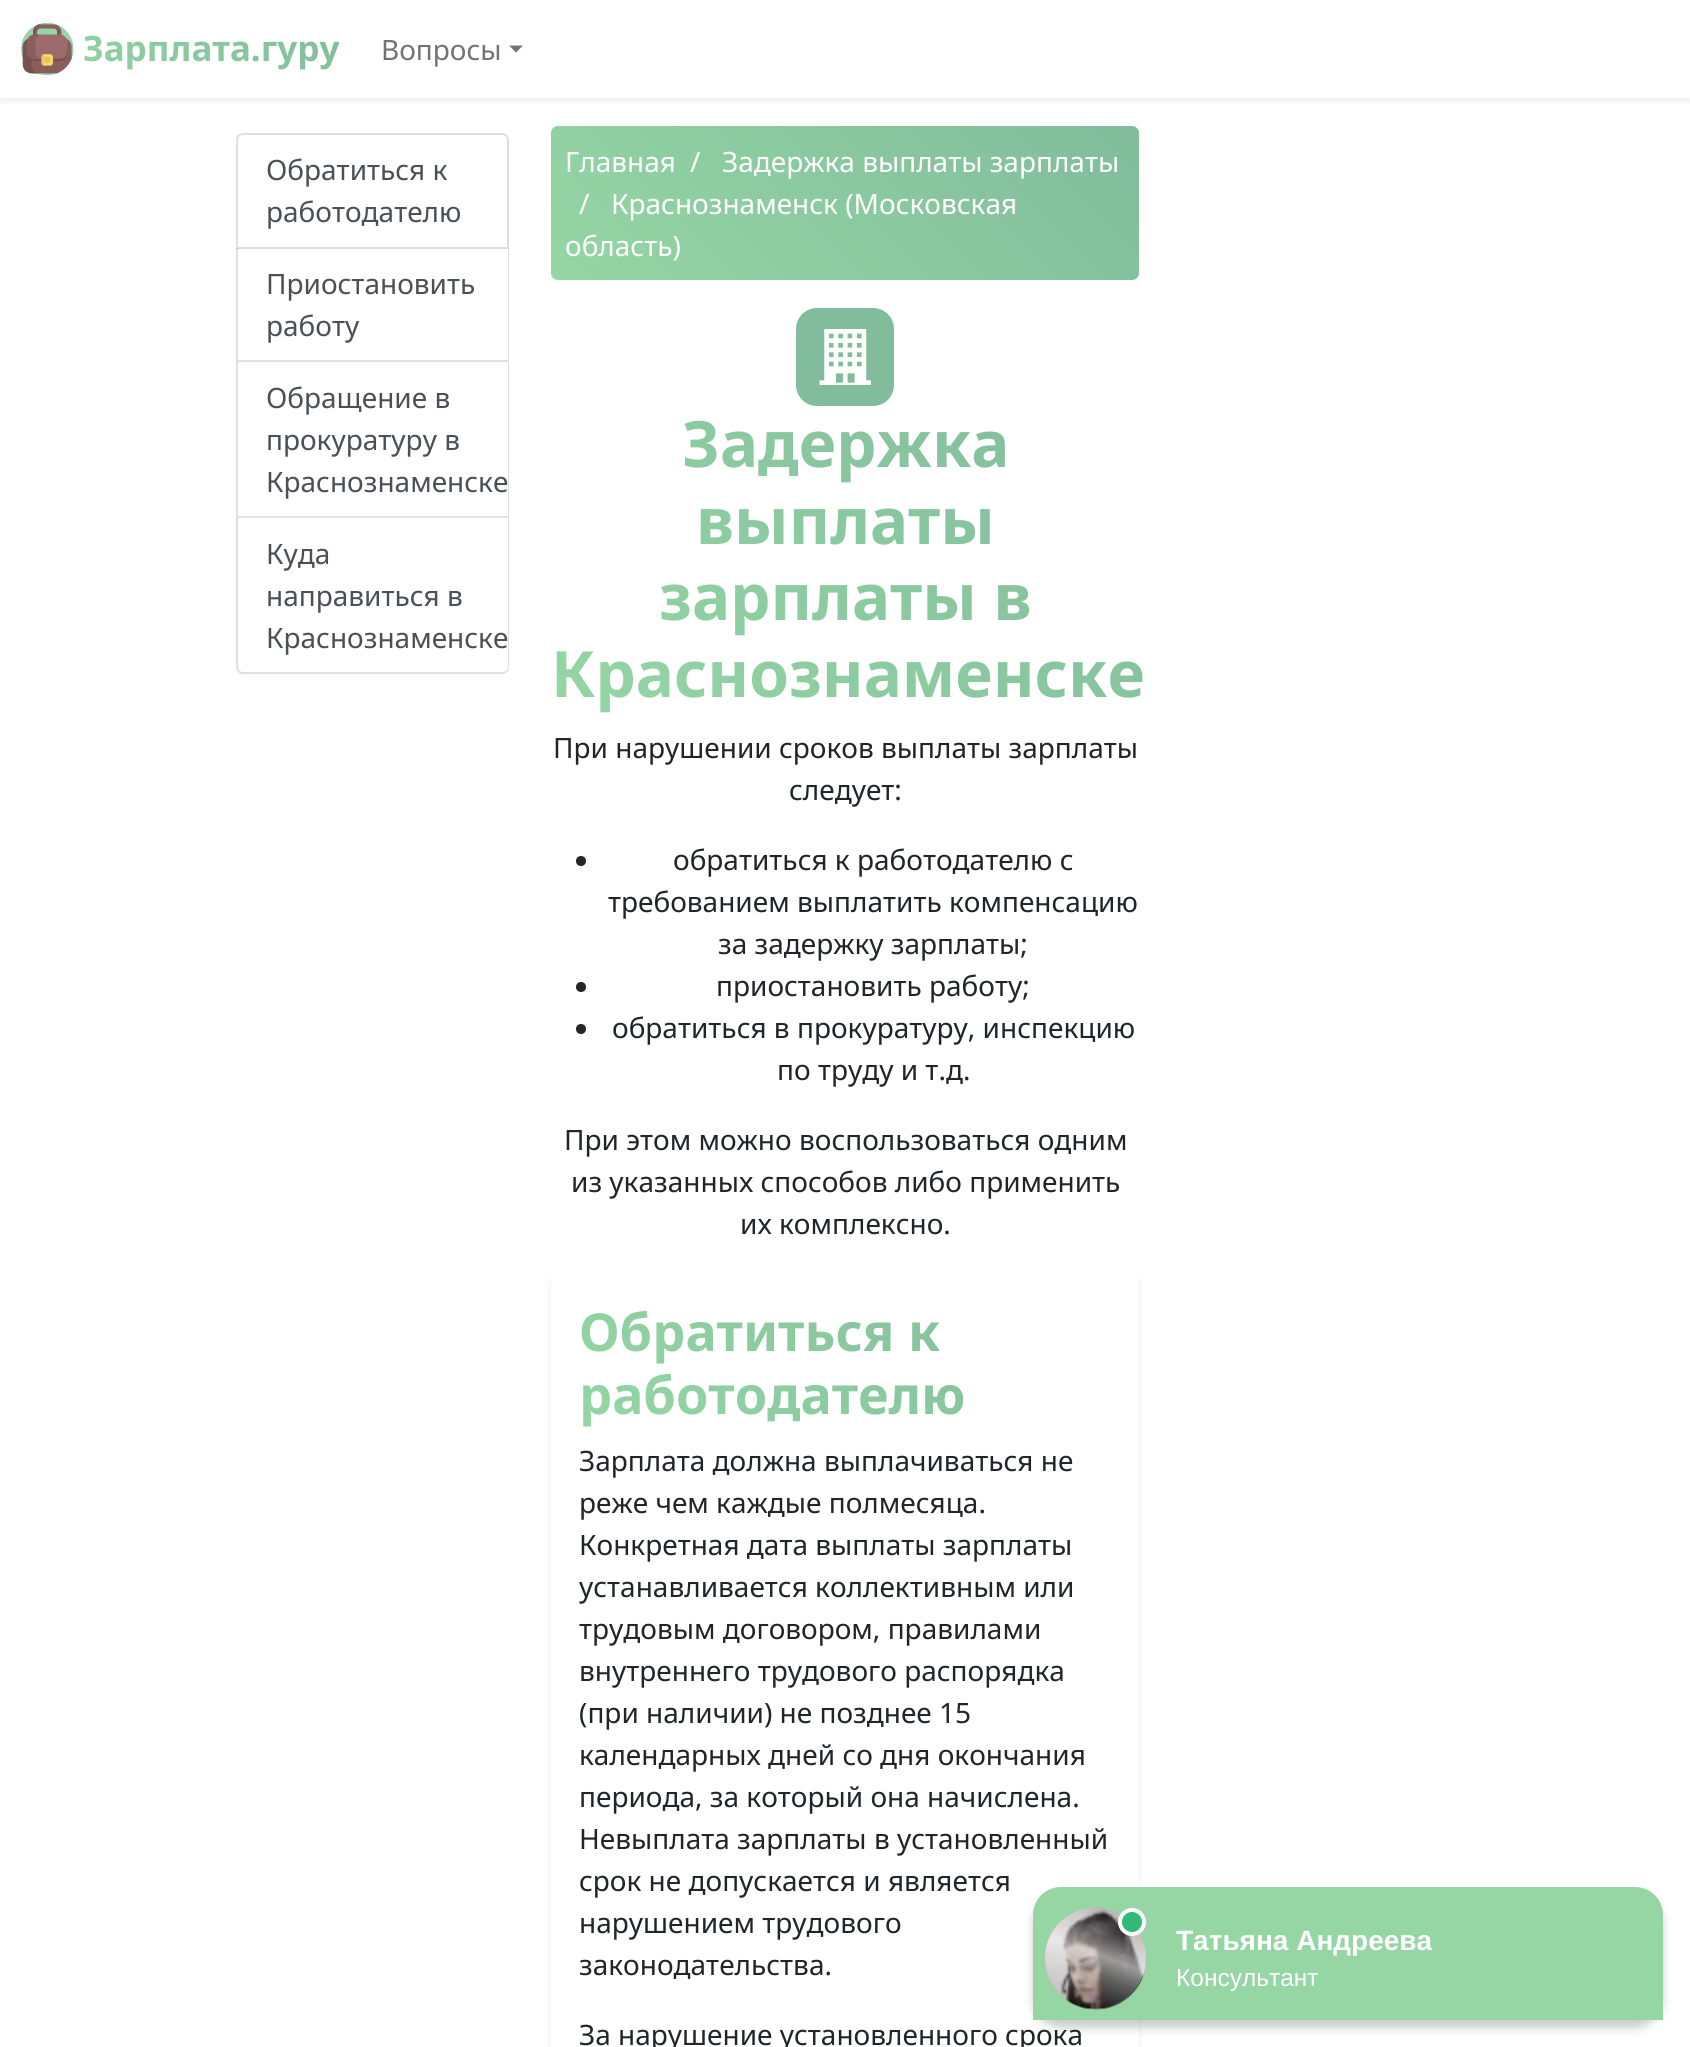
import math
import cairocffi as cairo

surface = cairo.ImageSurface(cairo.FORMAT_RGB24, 1690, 2047)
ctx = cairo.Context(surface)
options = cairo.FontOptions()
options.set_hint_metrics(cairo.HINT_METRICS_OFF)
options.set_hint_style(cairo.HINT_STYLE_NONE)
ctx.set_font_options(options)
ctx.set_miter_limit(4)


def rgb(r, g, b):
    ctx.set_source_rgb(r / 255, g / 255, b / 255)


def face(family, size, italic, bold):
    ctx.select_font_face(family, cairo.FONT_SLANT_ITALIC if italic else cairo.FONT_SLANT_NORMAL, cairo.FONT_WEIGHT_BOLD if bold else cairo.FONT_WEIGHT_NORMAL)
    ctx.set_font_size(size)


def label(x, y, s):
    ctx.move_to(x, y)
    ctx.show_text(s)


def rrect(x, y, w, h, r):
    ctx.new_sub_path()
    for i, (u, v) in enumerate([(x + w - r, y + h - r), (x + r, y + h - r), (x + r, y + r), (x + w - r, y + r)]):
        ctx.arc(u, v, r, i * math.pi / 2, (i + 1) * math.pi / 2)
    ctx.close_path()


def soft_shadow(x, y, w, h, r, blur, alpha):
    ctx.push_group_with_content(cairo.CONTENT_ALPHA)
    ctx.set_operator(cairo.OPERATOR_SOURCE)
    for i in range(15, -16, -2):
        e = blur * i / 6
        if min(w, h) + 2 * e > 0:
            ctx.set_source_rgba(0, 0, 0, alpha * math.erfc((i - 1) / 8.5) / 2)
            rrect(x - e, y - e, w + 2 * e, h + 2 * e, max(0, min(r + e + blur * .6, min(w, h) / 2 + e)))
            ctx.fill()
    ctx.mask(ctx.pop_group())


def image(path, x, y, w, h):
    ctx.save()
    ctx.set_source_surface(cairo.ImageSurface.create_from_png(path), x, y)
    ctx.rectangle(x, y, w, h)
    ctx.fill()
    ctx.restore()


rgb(255, 255, 255)
ctx.paint()
ctx.save()
ctx.rectangle(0, 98, 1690, 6)
ctx.clip()
rgb(0, 0, 0)
soft_shadow(0, 4, 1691, 98, 0, 3.5, 0.07)
ctx.restore()
image('image0.png', 21, 23, 53, 52)
face('Noto Sans', 35, 0, 1)
gradient = cairo.LinearGradient(83, 146, 277, -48)
gradient.add_color_stop_rgba(0, 0.584, 0.839, 0.643, 1)
gradient.add_color_stop_rgba(1, 0.506, 0.737, 0.612, 1)
ctx.set_source(gradient)
label(83, 61, 'Зарплата.гуру')
face('Noto Sans', 28, 0, 0)
rgb(115, 115, 115)
label(381, 60, 'Вопросы')
ctx.new_path()
ctx.move_to(509, 45.5)
ctx.line_to(523, 45.5)
ctx.line_to(516, 52.5)
ctx.close_path()
ctx.fill()
ctx.new_path()
ctx.move_to(243, 134)
ctx.line_to(502, 134)
ctx.curve_to(505.5, 134, 508, 136.5, 508, 140)
ctx.line_to(508, 248)
ctx.line_to(237, 248)
ctx.line_to(237, 140)
ctx.curve_to(237, 136.5, 239.5, 134, 243, 134)
ctx.close_path()
rgb(223, 223, 223)
ctx.stroke()
rgb(73, 80, 87)
label(266, 180, 'Обратиться к')
label(266, 222, 'работодателю')
ctx.set_source_rgba(0, 0, 0, 0.12)
ctx.new_path()
ctx.move_to(509, 248)
ctx.line_to(509, 362)
ctx.line_to(508, 360)
ctx.line_to(508, 248)
ctx.close_path()
ctx.fill()
ctx.new_path()
ctx.move_to(509, 362)
ctx.line_to(236, 362)
ctx.line_to(238, 360)
ctx.line_to(508, 360)
ctx.close_path()
ctx.fill()
ctx.new_path()
ctx.move_to(236, 362)
ctx.line_to(236, 248)
ctx.line_to(238, 248)
ctx.line_to(238, 360)
ctx.close_path()
ctx.fill()
rgb(73, 80, 87)
label(266, 294, 'Приостановить')
label(266, 336, 'работу')
rgb(223, 223, 223)
ctx.new_path()
ctx.move_to(509, 362)
ctx.line_to(509, 518)
ctx.line_to(508, 516)
ctx.line_to(508, 362)
ctx.close_path()
ctx.fill()
ctx.set_source_rgba(0, 0, 0, 0.12)
ctx.new_path()
ctx.move_to(509, 518)
ctx.line_to(236, 518)
ctx.line_to(238, 516)
ctx.line_to(508, 516)
ctx.close_path()
ctx.fill()
ctx.new_path()
ctx.move_to(236, 518)
ctx.line_to(236, 362)
ctx.line_to(238, 362)
ctx.line_to(238, 516)
ctx.close_path()
ctx.fill()
rgb(73, 80, 87)
label(266, 408, 'Обращение в')
label(266, 450, 'прокуратуру в')
label(266, 492, 'Краснознаменске')
rgb(223, 223, 223)
ctx.set_fill_rule(cairo.FILL_RULE_EVEN_ODD)
ctx.new_path()
ctx.move_to(236, 518)
ctx.line_to(509, 518)
ctx.line_to(509, 667)
ctx.curve_to(509, 671, 506, 674, 502, 674)
ctx.line_to(243, 674)
ctx.curve_to(239, 674, 236, 671, 236, 667)
ctx.close_path()
ctx.move_to(238, 518)
ctx.line_to(508, 518)
ctx.line_to(508, 667)
ctx.curve_to(508, 670, 505, 672, 502, 672)
ctx.line_to(243, 672)
ctx.curve_to(240, 672, 238, 670, 238, 667)
ctx.close_path()
ctx.fill()
rgb(73, 80, 87)
label(266, 564, 'Куда')
label(266, 606, 'направиться в')
label(266, 648, 'Краснознаменске')
gradient = cairo.LinearGradient(660, 389, 1031, 18)
gradient.add_color_stop_rgba(0, 0.584, 0.839, 0.643, 1)
gradient.add_color_stop_rgba(1, 0.506, 0.737, 0.612, 1)
ctx.set_source(gradient)
rrect(551, 126, 588, 154, 7)
ctx.fill()
rgb(255, 255, 255)
label(565, 172, 'Главная')
label(690, 172, '/')
label(722, 172, 'Задержка выплаты зарплаты')
label(579, 214, '/')
label(611, 214, 'Краснознаменск (Московская')
label(565, 256, 'область)')
rgb(129, 188, 156)
rrect(796, 308, 98, 98, 21)
ctx.fill()
image('image1.png', 819, 329, 52, 56)
face('Noto Sans', 63.9, 0, 1)
gradient = cairo.LinearGradient(622, 783, 1069, 336)
gradient.add_color_stop_rgba(0, 0.584, 0.839, 0.643, 1)
gradient.add_color_stop_rgba(1, 0.506, 0.737, 0.612, 1)
ctx.set_source(gradient)
label(682, 467, 'Задержка')
label(696, 544, 'выплаты')
label(659, 620, 'зарплаты в')
label(551, 697, 'Краснознаменске')
face('Noto Sans', 28, 0, 0)
rgb(33, 37, 41)
label(553, 758, 'При нарушении сроков выплаты зарплаты')
label(789, 800, 'следует:')
ctx.new_path()
ctx.arc(581, 861, 5, 0, 2 * math.pi)
ctx.fill()
label(673, 870, 'обратиться к работодателю с')
label(608, 912, 'требованием выплатить компенсацию')
label(718, 954, 'за задержку зарплаты;')
ctx.new_path()
ctx.arc(581, 987, 5, 0, 2 * math.pi)
ctx.fill()
label(716, 996, 'приостановить работу;')
ctx.new_path()
ctx.arc(581, 1029, 5, 0, 2 * math.pi)
ctx.fill()
label(612, 1038, 'обратиться в прокуратуру, инспекцию')
label(777, 1080, 'по труду и т.д.')
label(564, 1150, 'При этом можно воспользоваться одним')
label(571, 1192, 'из указанных способов либо применить')
label(740, 1234, 'их комплексно.')
rgb(0, 0, 0)
soft_shadow(551, 1276, 588, 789, 7, 3.5, 0.07)
rgb(255, 255, 255)
rrect(551, 1272, 588, 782, 7)
ctx.fill()
face('Noto Sans', 52.25, 0, 1)
gradient = cairo.LinearGradient(681, 1528, 1010, 1199)
gradient.add_color_stop_rgba(0, 0.584, 0.839, 0.643, 1)
gradient.add_color_stop_rgba(1, 0.506, 0.737, 0.612, 1)
ctx.set_source(gradient)
label(579, 1351, 'Обратиться к')
label(579, 1414, 'работодателю')
face('Noto Sans', 28, 0, 0)
rgb(33, 37, 41)
label(579, 1471, 'Зарплата должна выплачиваться не')
label(579, 1513, 'реже чем каждые полмесяца.')
label(579, 1555, 'Конкретная дата выплаты зарплаты')
label(579, 1597, 'устанавливается коллективным или')
label(579, 1639, 'трудовым договором, правилами')
label(579, 1681, 'внутреннего трудового распорядка')
label(579, 1723, '(при наличии) не позднее 15')
label(579, 1765, 'календарных дней со дня окончания')
label(579, 1807, 'периода, за который она начислена.')
label(579, 1849, 'Невыплата зарплаты в установленный')
label(579, 1891, 'срок не допускается и является')
label(579, 1933, 'нарушением трудового')
label(579, 1975, 'законодательства.')
label(579, 2045, 'За нарушение установленного срока')
rgb(0, 0, 0)
soft_shadow(1033, 1895, 630, 133, 28, 4.5, 0.2)
rgb(149, 214, 164)
ctx.new_path()
ctx.move_to(1061, 1887)
ctx.line_to(1635, 1887)
ctx.curve_to(1650.5, 1887, 1663, 1899.5, 1663, 1915)
ctx.line_to(1663, 2020)
ctx.line_to(1033, 2020)
ctx.line_to(1033, 1915)
ctx.curve_to(1033, 1899.5, 1045.5, 1887, 1061, 1887)
ctx.close_path()
ctx.fill()
image('image2.png', 1044, 1907, 103, 103)
gradient = cairo.LinearGradient(1113, 1917, 1078, 2012)
gradient.add_color_stop_rgba(0, 1, 1, 1, 0)
gradient.add_color_stop_rgba(0.4, 1, 1, 1, 0.6)
gradient.add_color_stop_rgba(0.6, 1, 1, 1, 0.36)
gradient.add_color_stop_rgba(1, 1, 1, 1, 0)
ctx.set_source(gradient)
ctx.set_fill_rule(cairo.FILL_RULE_WINDING)
ctx.new_path()
ctx.move_to(1090, 1908)
ctx.line_to(1132, 1923)
ctx.curve_to(1141, 1932, 1146, 1945, 1146, 1958)
ctx.curve_to(1146, 1986, 1123, 2009, 1096, 2009)
ctx.curve_to(1068, 2009, 1045, 1986, 1045, 1958)
ctx.curve_to(1045, 1932, 1065, 1911, 1090, 1908)
ctx.close_path()
ctx.fill()
rgb(49, 185, 120)
ctx.arc(1132, 1922, 12, 0, 2 * math.pi)
ctx.fill_preserve()
rgb(255, 255, 255)
ctx.set_line_width(4)
ctx.stroke()
face('Liberation Sans', 28, 0, 1)
label(1176, 1950, 'Татьяна Андреева')
face('Liberation Sans', 24.5, 0, 0)
label(1176, 1986, 'Консультант')
surface.write_to_png('render.png')
